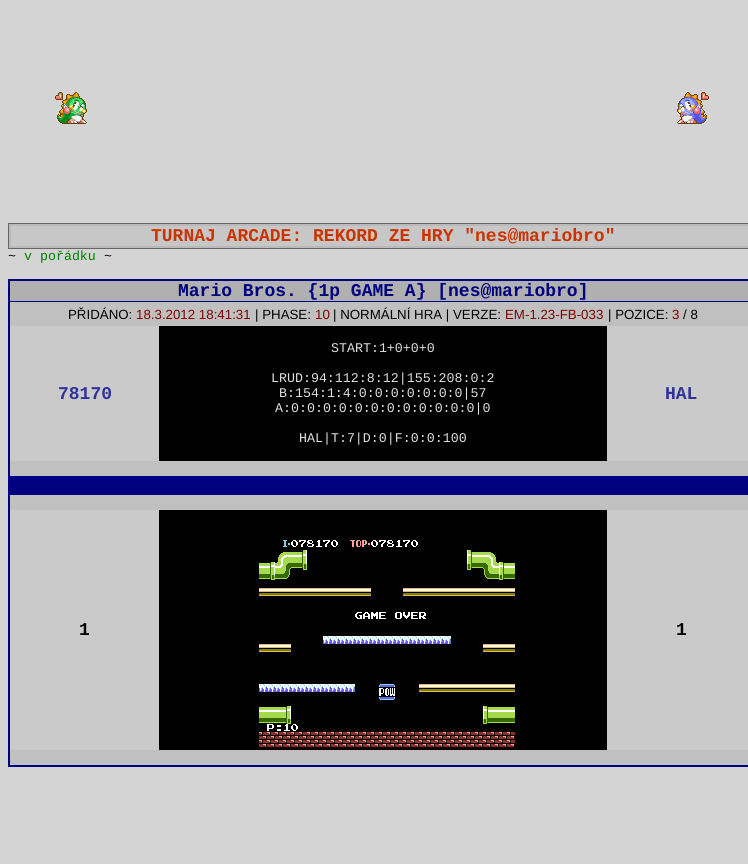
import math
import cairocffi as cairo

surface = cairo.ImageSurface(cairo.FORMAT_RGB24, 748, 864)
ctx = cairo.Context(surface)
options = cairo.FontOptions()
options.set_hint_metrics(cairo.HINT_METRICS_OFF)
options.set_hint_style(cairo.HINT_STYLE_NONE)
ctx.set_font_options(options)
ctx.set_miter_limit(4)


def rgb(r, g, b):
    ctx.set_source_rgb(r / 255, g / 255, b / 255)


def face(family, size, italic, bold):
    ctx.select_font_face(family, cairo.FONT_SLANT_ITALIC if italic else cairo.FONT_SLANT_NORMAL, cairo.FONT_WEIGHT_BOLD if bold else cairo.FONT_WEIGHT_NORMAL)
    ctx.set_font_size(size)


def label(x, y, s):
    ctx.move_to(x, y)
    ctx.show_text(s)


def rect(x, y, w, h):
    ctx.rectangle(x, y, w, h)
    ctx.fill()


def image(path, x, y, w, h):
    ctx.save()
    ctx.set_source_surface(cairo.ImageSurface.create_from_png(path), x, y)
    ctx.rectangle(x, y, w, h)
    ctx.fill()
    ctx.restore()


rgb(212, 212, 212)
ctx.paint()
image('image0.png', 55, 92, 32, 32)
image('image1.png', 677, 92, 32, 32)
rgb(199, 199, 199)
rect(11, 226, 737, 20)
ctx.rectangle(8.5, 223.5, 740, 25)
rgb(102, 102, 102)
ctx.set_line_width(1)
ctx.stroke()
ctx.rectangle(10, 225, 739, 22)
rgb(186, 186, 186)
ctx.set_line_width(2)
ctx.stroke()
face('Liberation Mono', 18, 0, 1)
rgb(204, 51, 0)
label(151, 241, 'TURNAJ ARCADE: REKORD ZE HRY "nes@mariobro"')
face('Liberation Mono', 13.3, 0, 0)
rgb(0, 0, 0)
label(8, 260, '~')
rgb(0, 128, 0)
label(24, 260, 'v pořádku')
rgb(0, 0, 0)
label(104, 260, '~')
rgb(176, 176, 176)
rect(10, 281, 738, 20)
rgb(0, 0, 128)
rect(8, 279, 740, 2)
rect(8, 301, 740, 1)
rect(8, 279, 2, 23)
face('Liberation Mono', 18, 0, 1)
label(178, 296, 'Mario Bros. {1p GAME A} [nes@mariobro]')
rgb(192, 192, 192)
rect(10, 302, 738, 174)
rgb(0, 0, 128)
rect(8, 476, 740, 2)
rect(8, 302, 2, 176)
face('Liberation Sans', 13.3, 0, 0)
rgb(0, 0, 0)
label(68, 319, 'PŘIDÁNO:')
rgb(128, 0, 0)
label(136, 319, '18.3.2012 18:41:31')
rgb(0, 0, 0)
label(255, 319, '| PHASE:')
rgb(128, 0, 0)
label(315, 319, '10')
rgb(0, 0, 0)
label(333, 319, '| NORMÁLNÍ HRA | VERZE:')
rgb(128, 0, 0)
label(505, 319, 'EM-1.23-FB-033')
rgb(0, 0, 0)
label(608, 319, '| POZICE:')
rgb(128, 0, 0)
label(672, 319, '3')
rgb(0, 0, 0)
label(683, 319, '/ 8')
rgb(202, 202, 202)
rect(10, 326, 149, 135)
face('Liberation Mono', 18, 0, 1)
rgb(49, 49, 156)
label(58, 399, '78170')
rgb(0, 0, 0)
rect(159, 326, 448, 135)
face('Liberation Mono', 13.3, 0, 0)
rgb(223, 223, 223)
label(331, 352, 'START:1+0+0+0')
label(271, 382, 'LRUD:94:112:8:12|155:208:0:2')
label(279, 397, 'B:154:1:4:0:0:0:0:0:0:0|57')
label(275, 412, 'A:0:0:0:0:0:0:0:0:0:0:0:0|0')
label(299, 442, 'HAL|T:7|D:0|F:0:0:100')
rgb(202, 202, 202)
rect(607, 326, 141, 135)
face('Liberation Mono', 18, 0, 1)
rgb(49, 49, 156)
label(665, 399, 'HAL')
rgb(0, 0, 128)
rect(8, 493, 740, 2)
rect(8, 478, 2, 17)
rect(10, 478, 738, 15)
rgb(192, 192, 192)
rect(10, 495, 738, 270)
rgb(0, 0, 128)
rect(8, 765, 740, 2)
rect(8, 495, 2, 272)
rgb(202, 202, 202)
rect(10, 510, 149, 240)
rgb(0, 0, 0)
label(79, 635, '1')
rect(159, 510, 448, 240)
image('image2.png', 259, 540, 256, 207)
rgb(202, 202, 202)
rect(607, 510, 141, 240)
rgb(0, 0, 0)
label(676, 635, '1')
surface.write_to_png('render.png')
